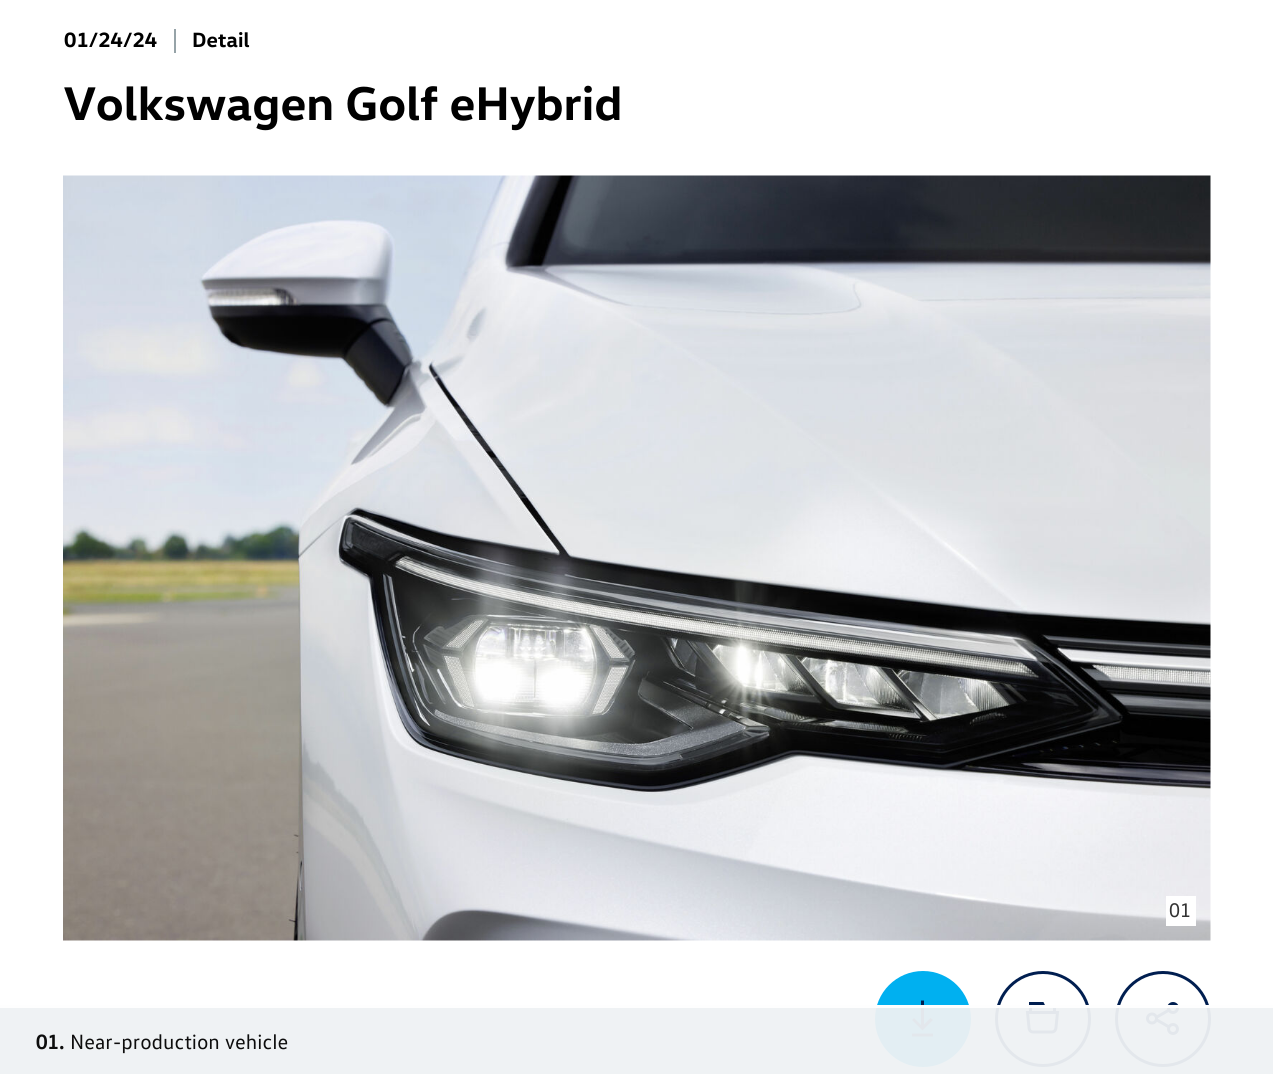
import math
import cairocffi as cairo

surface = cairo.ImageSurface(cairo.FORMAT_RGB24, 1273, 1074)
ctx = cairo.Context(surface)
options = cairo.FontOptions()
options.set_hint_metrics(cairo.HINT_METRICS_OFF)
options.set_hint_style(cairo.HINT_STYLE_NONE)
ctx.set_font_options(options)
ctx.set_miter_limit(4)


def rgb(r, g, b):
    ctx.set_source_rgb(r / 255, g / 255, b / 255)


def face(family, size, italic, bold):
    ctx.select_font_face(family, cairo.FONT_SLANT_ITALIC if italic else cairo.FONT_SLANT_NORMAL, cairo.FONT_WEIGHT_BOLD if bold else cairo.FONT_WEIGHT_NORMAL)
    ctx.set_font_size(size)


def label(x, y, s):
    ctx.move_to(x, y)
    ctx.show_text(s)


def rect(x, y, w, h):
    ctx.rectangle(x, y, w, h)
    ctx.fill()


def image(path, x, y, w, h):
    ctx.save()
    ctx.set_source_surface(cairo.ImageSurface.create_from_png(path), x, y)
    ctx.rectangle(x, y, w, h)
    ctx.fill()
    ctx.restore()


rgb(255, 255, 255)
ctx.paint()
face('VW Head', 21, 0, 1)
rgb(0, 0, 0)
label(64, 47, '01/24/24')
rgb(150, 163, 168)
rect(174, 29, 2, 24)
rgb(0, 0, 0)
label(192, 47, 'Detail')
face('VW Head', 48, 0, 1)
label(64, 120, 'Volkswagen Golf eHybrid')
image('image0.png', 63, 175, 1148, 766)
rgb(255, 255, 255)
rect(1166, 896, 30, 30)
face('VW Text', 20, 0, 0)
rgb(51, 51, 51)
label(1169, 917, '01')
rgb(0, 176, 240)
ctx.new_path()
ctx.arc(923, 1019, 48, 0, 2 * math.pi)
ctx.fill()
rgb(0, 30, 80)
ctx.new_path()
ctx.move_to(921, 1025)
ctx.line_to(921, 1000.5)
ctx.line_to(924, 1000.5)
ctx.line_to(924, 1024.5)
ctx.line_to(930.5, 1018)
ctx.line_to(933, 1020)
ctx.line_to(922.5, 1030.5)
ctx.line_to(912, 1020)
ctx.line_to(914, 1018)
ctx.close_path()
ctx.move_to(912, 1033.5)
ctx.line_to(933, 1033.5)
ctx.line_to(933, 1036.5)
ctx.line_to(912, 1036.5)
ctx.close_path()
ctx.fill()
ctx.arc(1043, 1019, 46.5, 0, 2 * math.pi)
ctx.set_line_width(3)
ctx.stroke()
image('image1.png', 1025, 1002, 35, 32)
ctx.arc(1163, 1019, 46.5, 0, 2 * math.pi)
ctx.stroke()
image('image2.png', 1146, 1002, 33, 33)
ctx.set_source_rgba(0.937, 0.949, 0.957, 0.95)
rect(0, 1005, 1273, 69)
ctx.set_source_rgba(1, 1, 1, 0.95)
rect(0, 1005, 1273, 3)
face('VW Text', 21, 0, 1)
rgb(13, 13, 13)
label(36, 1049, '01.')
face('VW Text', 21, 0, 0)
label(70, 1049, 'Near-production vehicle')
surface.write_to_png('render.png')
